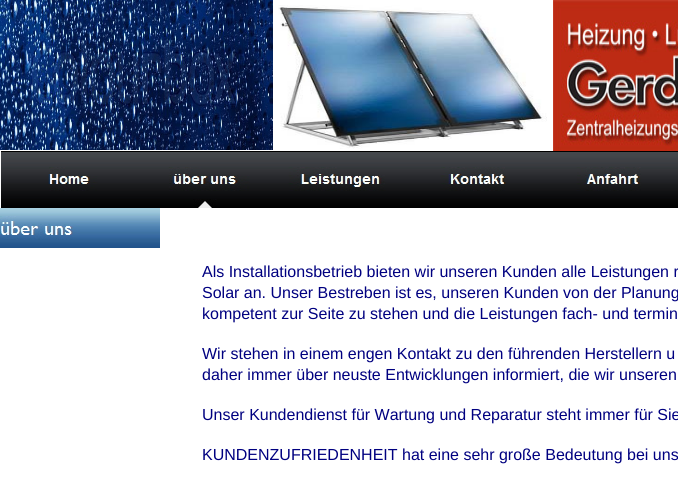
import math
import cairocffi as cairo

surface = cairo.ImageSurface(cairo.FORMAT_RGB24, 678, 480)
ctx = cairo.Context(surface)
options = cairo.FontOptions()
options.set_hint_metrics(cairo.HINT_METRICS_OFF)
options.set_hint_style(cairo.HINT_STYLE_NONE)
ctx.set_font_options(options)
ctx.set_miter_limit(4)


def rgb(r, g, b):
    ctx.set_source_rgb(r / 255, g / 255, b / 255)


def face(family, size, italic, bold):
    ctx.select_font_face(family, cairo.FONT_SLANT_ITALIC if italic else cairo.FONT_SLANT_NORMAL, cairo.FONT_WEIGHT_BOLD if bold else cairo.FONT_WEIGHT_NORMAL)
    ctx.set_font_size(size)


def label(x, y, s):
    ctx.move_to(x, y)
    ctx.show_text(s)


def image(path, x, y, w, h):
    ctx.save()
    ctx.set_source_surface(cairo.ImageSurface.create_from_png(path), x, y)
    ctx.rectangle(x, y, w, h)
    ctx.fill()
    ctx.restore()


rgb(255, 255, 255)
ctx.paint()
image('image0.png', 0, 0, 273, 150)
image('image1.png', 553, 0, 125, 151)
image('image2.png', 278, 5, 269, 144)
image('image3.png', 1, 151, 136, 57)
image('image4.png', 137, 151, 136, 57)
image('image5.png', 273, 151, 136, 57)
image('image6.png', 409, 151, 136, 57)
image('image7.png', 545, 151, 133, 57)
image('image8.png', 0, 208, 160, 40)
face('Liberation Sans', 16, 0, 0)
rgb(0, 0, 128)
label(202, 277, 'Als Installationsbetrieb bieten wir unseren Kunden alle Leistungen r')
label(202, 298, 'Solar an. Unser Bestreben ist es, unseren Kunden von der Planung')
label(202, 319, 'kompetent zur Seite zu stehen und die Leistungen fach- und termin')
label(202, 359, 'Wir stehen in einem engen Kontakt zu den führenden Herstellern u')
label(202, 380, 'daher immer über neuste Entwicklungen informiert, die wir unseren')
label(202, 420, 'Unser Kundendienst für Wartung und Reparatur steht immer für Sie')
label(202, 460, 'KUNDENZUFRIEDENHEIT hat eine sehr große Bedeutung bei uns')
surface.write_to_png('render.png')
